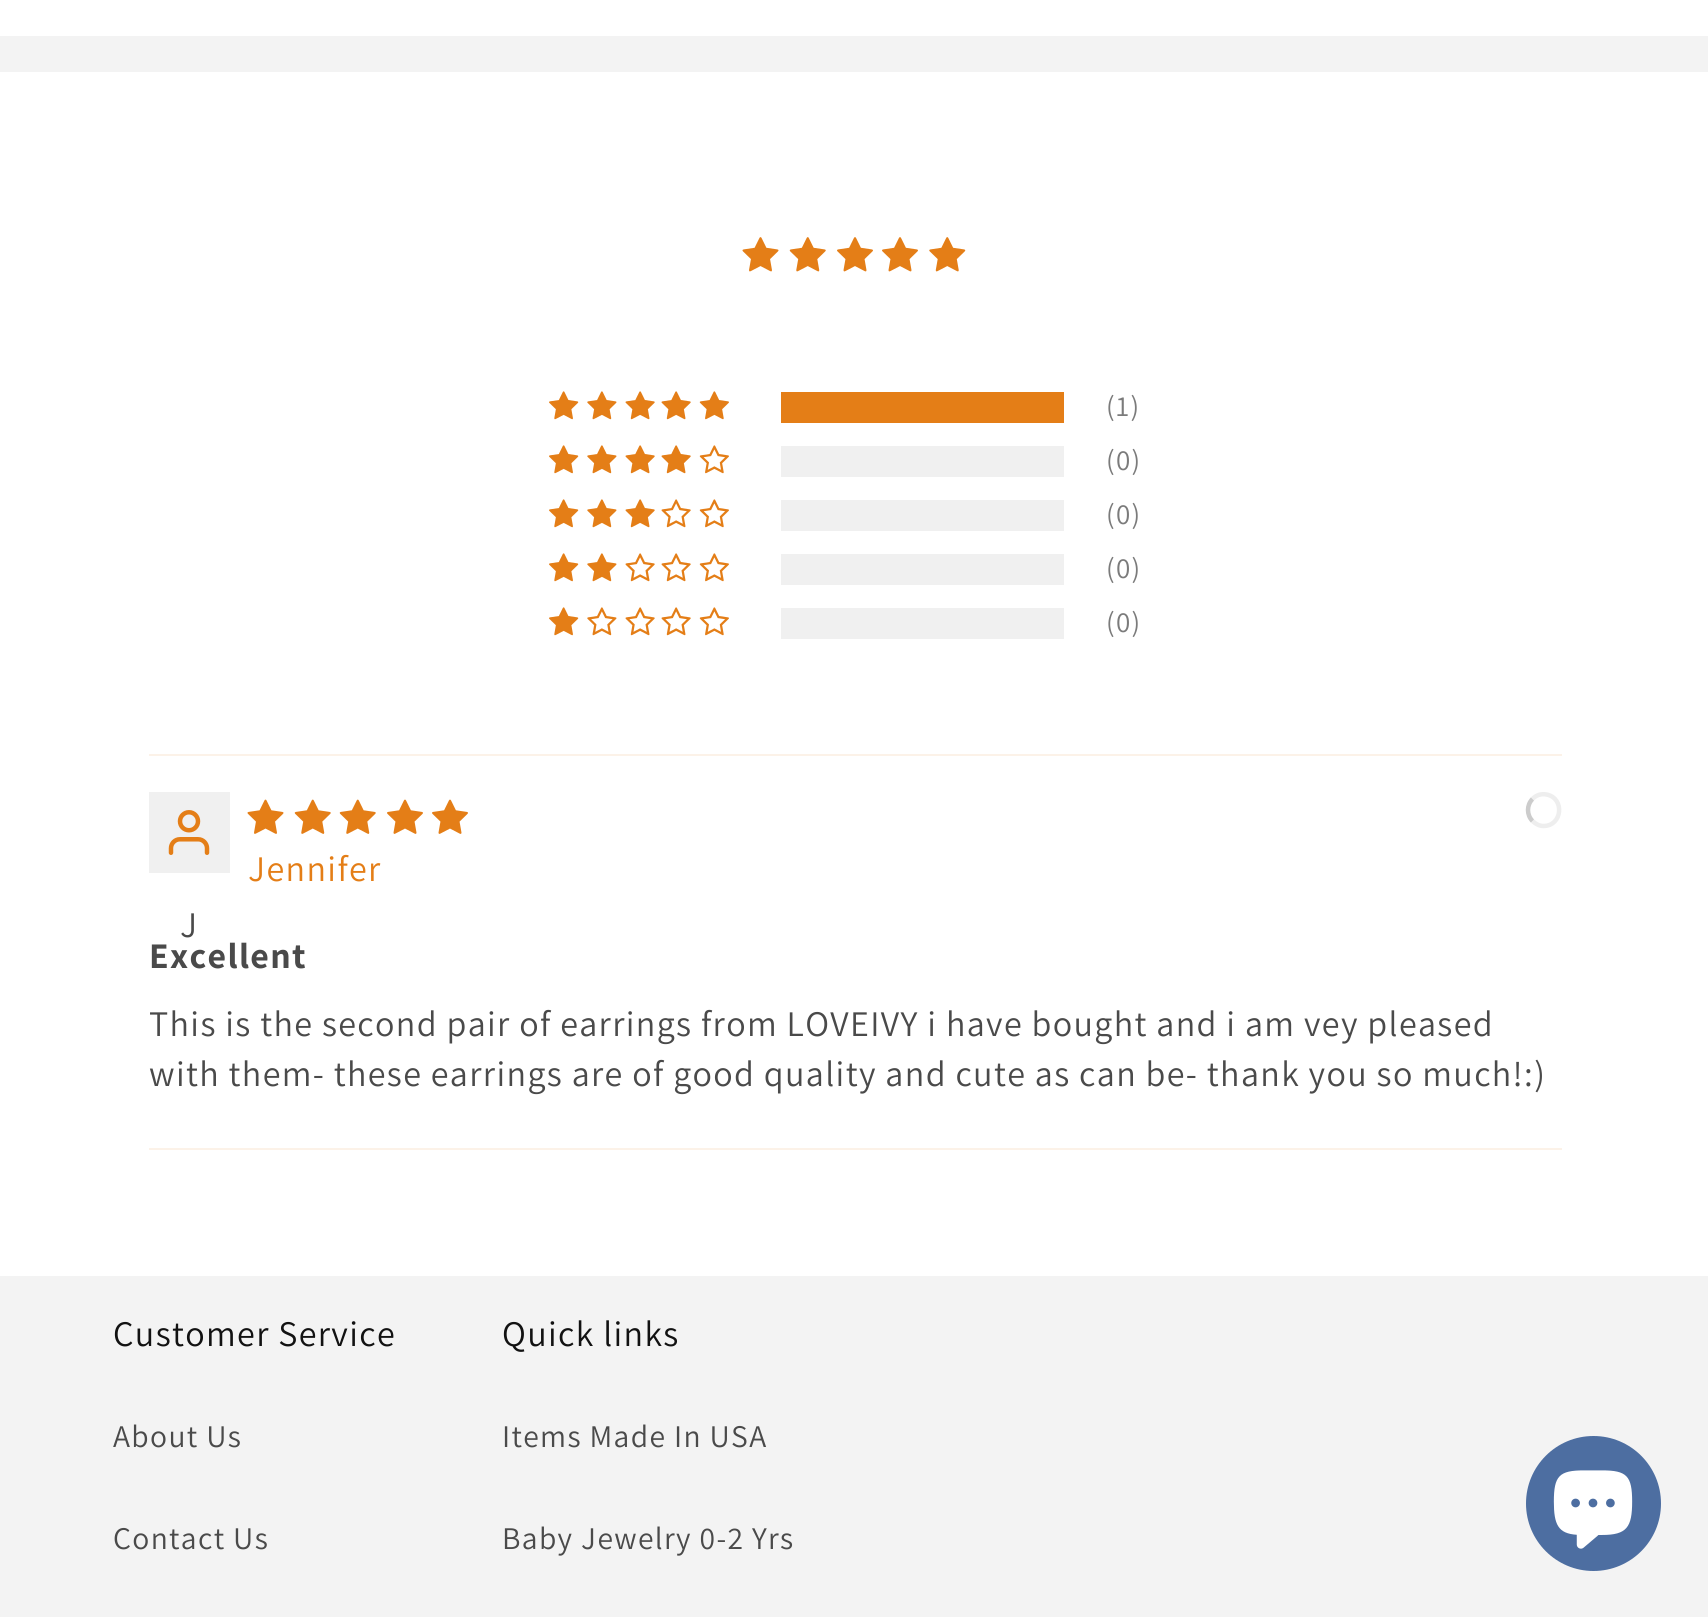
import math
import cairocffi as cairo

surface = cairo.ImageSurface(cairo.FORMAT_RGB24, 1708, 1617)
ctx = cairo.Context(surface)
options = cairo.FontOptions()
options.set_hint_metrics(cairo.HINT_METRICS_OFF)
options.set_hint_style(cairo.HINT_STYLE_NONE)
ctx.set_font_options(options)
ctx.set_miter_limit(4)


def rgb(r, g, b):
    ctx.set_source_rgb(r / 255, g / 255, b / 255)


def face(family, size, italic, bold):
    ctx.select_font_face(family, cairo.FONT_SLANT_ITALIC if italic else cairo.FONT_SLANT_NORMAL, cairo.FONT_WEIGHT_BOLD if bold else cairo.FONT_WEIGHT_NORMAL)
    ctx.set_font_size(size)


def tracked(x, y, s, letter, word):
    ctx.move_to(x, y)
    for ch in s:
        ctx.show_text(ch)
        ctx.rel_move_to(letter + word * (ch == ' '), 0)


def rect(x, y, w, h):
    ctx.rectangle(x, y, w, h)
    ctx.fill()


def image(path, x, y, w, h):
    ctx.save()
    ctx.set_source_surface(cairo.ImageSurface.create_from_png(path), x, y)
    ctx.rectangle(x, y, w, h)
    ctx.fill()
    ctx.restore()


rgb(255, 255, 255)
ctx.paint()
rgb(243, 243, 243)
rect(0, 36, 1708, 36)
image('image0.png', 742, 237, 37, 35)
image('image1.png', 789, 237, 37, 35)
image('image2.png', 837, 237, 36, 35)
image('image2.png', 882, 237, 36, 35)
image('image3.png', 929, 237, 37, 35)
image('image4.png', 549, 391, 30, 29)
image('image5.png', 587, 391, 30, 29)
image('image6.png', 625, 391, 30, 29)
image('image6.png', 661, 391, 30, 29)
image('image7.png', 699, 391, 30, 29)
rgb(228, 126, 23)
rect(781, 392, 283, 31)
face('Assistant', 29, 0, 0)
rgb(123, 123, 123)
tracked(1106, 416, '(1)', 1.35, 0)
image('image4.png', 549, 445, 30, 29)
image('image5.png', 587, 445, 30, 29)
image('image6.png', 625, 445, 30, 29)
image('image6.png', 661, 445, 30, 29)
image('image8.png', 699, 445, 30, 29)
rgb(240, 240, 240)
rect(781, 446, 283, 31)
rgb(123, 123, 123)
tracked(1106, 470, '(0)', 1.35, 0)
image('image4.png', 549, 499, 30, 29)
image('image5.png', 587, 499, 30, 29)
image('image6.png', 625, 499, 30, 29)
image('image9.png', 661, 499, 30, 29)
image('image8.png', 699, 499, 30, 29)
rgb(240, 240, 240)
rect(781, 500, 283, 31)
rgb(123, 123, 123)
tracked(1106, 524, '(0)', 1.35, 0)
image('image4.png', 549, 553, 30, 29)
image('image5.png', 587, 553, 30, 29)
image('image9.png', 625, 553, 30, 29)
image('image9.png', 661, 553, 30, 29)
image('image8.png', 699, 553, 30, 29)
rgb(240, 240, 240)
rect(781, 554, 283, 31)
rgb(123, 123, 123)
tracked(1106, 578, '(0)', 1.35, 0)
image('image4.png', 549, 607, 30, 29)
image('image10.png', 587, 607, 30, 29)
image('image9.png', 625, 607, 30, 29)
image('image9.png', 661, 607, 30, 29)
image('image8.png', 699, 607, 30, 29)
rgb(240, 240, 240)
rect(781, 608, 283, 31)
rgb(123, 123, 123)
tracked(1106, 632, '(0)', 1.35, 0)
rgb(252, 242, 232)
rect(149, 754, 1413, 2)
image('image11.png', 247, 799, 37, 35)
image('image12.png', 294, 799, 37, 35)
image('image12.png', 339, 799, 37, 35)
image('image13.png', 387, 799, 36, 35)
image('image13.png', 432, 799, 36, 35)
ctx.new_path()
ctx.move_to(1532.5, 799)
ctx.curve_to(1536, 795, 1541.5, 793.5, 1546.5, 794.5)
ctx.curve_to(1565, 798, 1562.5, 826, 1543.5, 826)
ctx.curve_to(1539.5, 826, 1535.5, 824, 1532.5, 821)
rgb(238, 238, 238)
ctx.set_line_width(4.5)
ctx.stroke()
ctx.new_path()
ctx.move_to(1532.5, 821)
ctx.curve_to(1526.5, 815, 1526.5, 805, 1532.5, 799)
rgb(204, 204, 204)
ctx.stroke()
face('Assistant', 36, 0, 0)
rgb(228, 126, 23)
tracked(248, 881, 'Jennifer', 1.35, 0)
rgb(240, 240, 240)
rect(149, 792, 81, 81)
image('image14.png', 168, 810, 42, 45)
rgb(74, 74, 74)
tracked(180, 937, 'J', 1.35, 0)
face('Assistant', 36, 0, 1)
tracked(149, 968, 'Excellent', 1.35, 0)
face('Assistant', 36, 0, 0)
tracked(149, 1036, 'This is the second pair of earrings from LOVEIVY i have bought and i am vey pleased', 1.35, 0)
tracked(149, 1086, 'with them- these earrings are of good quality and cute as can be- thank you so much!:)', 1.35, 0)
rgb(252, 242, 232)
rect(149, 1148, 1413, 2)
rgb(243, 243, 243)
rect(0, 1276, 1708, 341)
rgb(18, 18, 18)
tracked(113, 1346, 'Customer Service', 1.35, 0)
face('Assistant', 31.5, 0, 0)
rgb(74, 74, 74)
tracked(113, 1447, 'About Us', 1.35, 0)
tracked(113, 1549, 'Contact Us', 1.35, 0)
face('Assistant', 36, 0, 0)
rgb(18, 18, 18)
tracked(502, 1346, 'Quick links', 1.35, 0)
face('Assistant', 31.5, 0, 0)
rgb(74, 74, 74)
tracked(502, 1447, 'Items Made In USA', 1.35, 0)
tracked(502, 1549, 'Baby Jewelry 0-2 Yrs', 1.35, 0)
rgb(77, 110, 161)
ctx.new_path()
ctx.arc(1593.5, 1503.5, 67.5, 0, 2 * math.pi)
ctx.fill()
image('image15.png', 1553, 1470, 80, 79)
surface.write_to_png('render.png')
